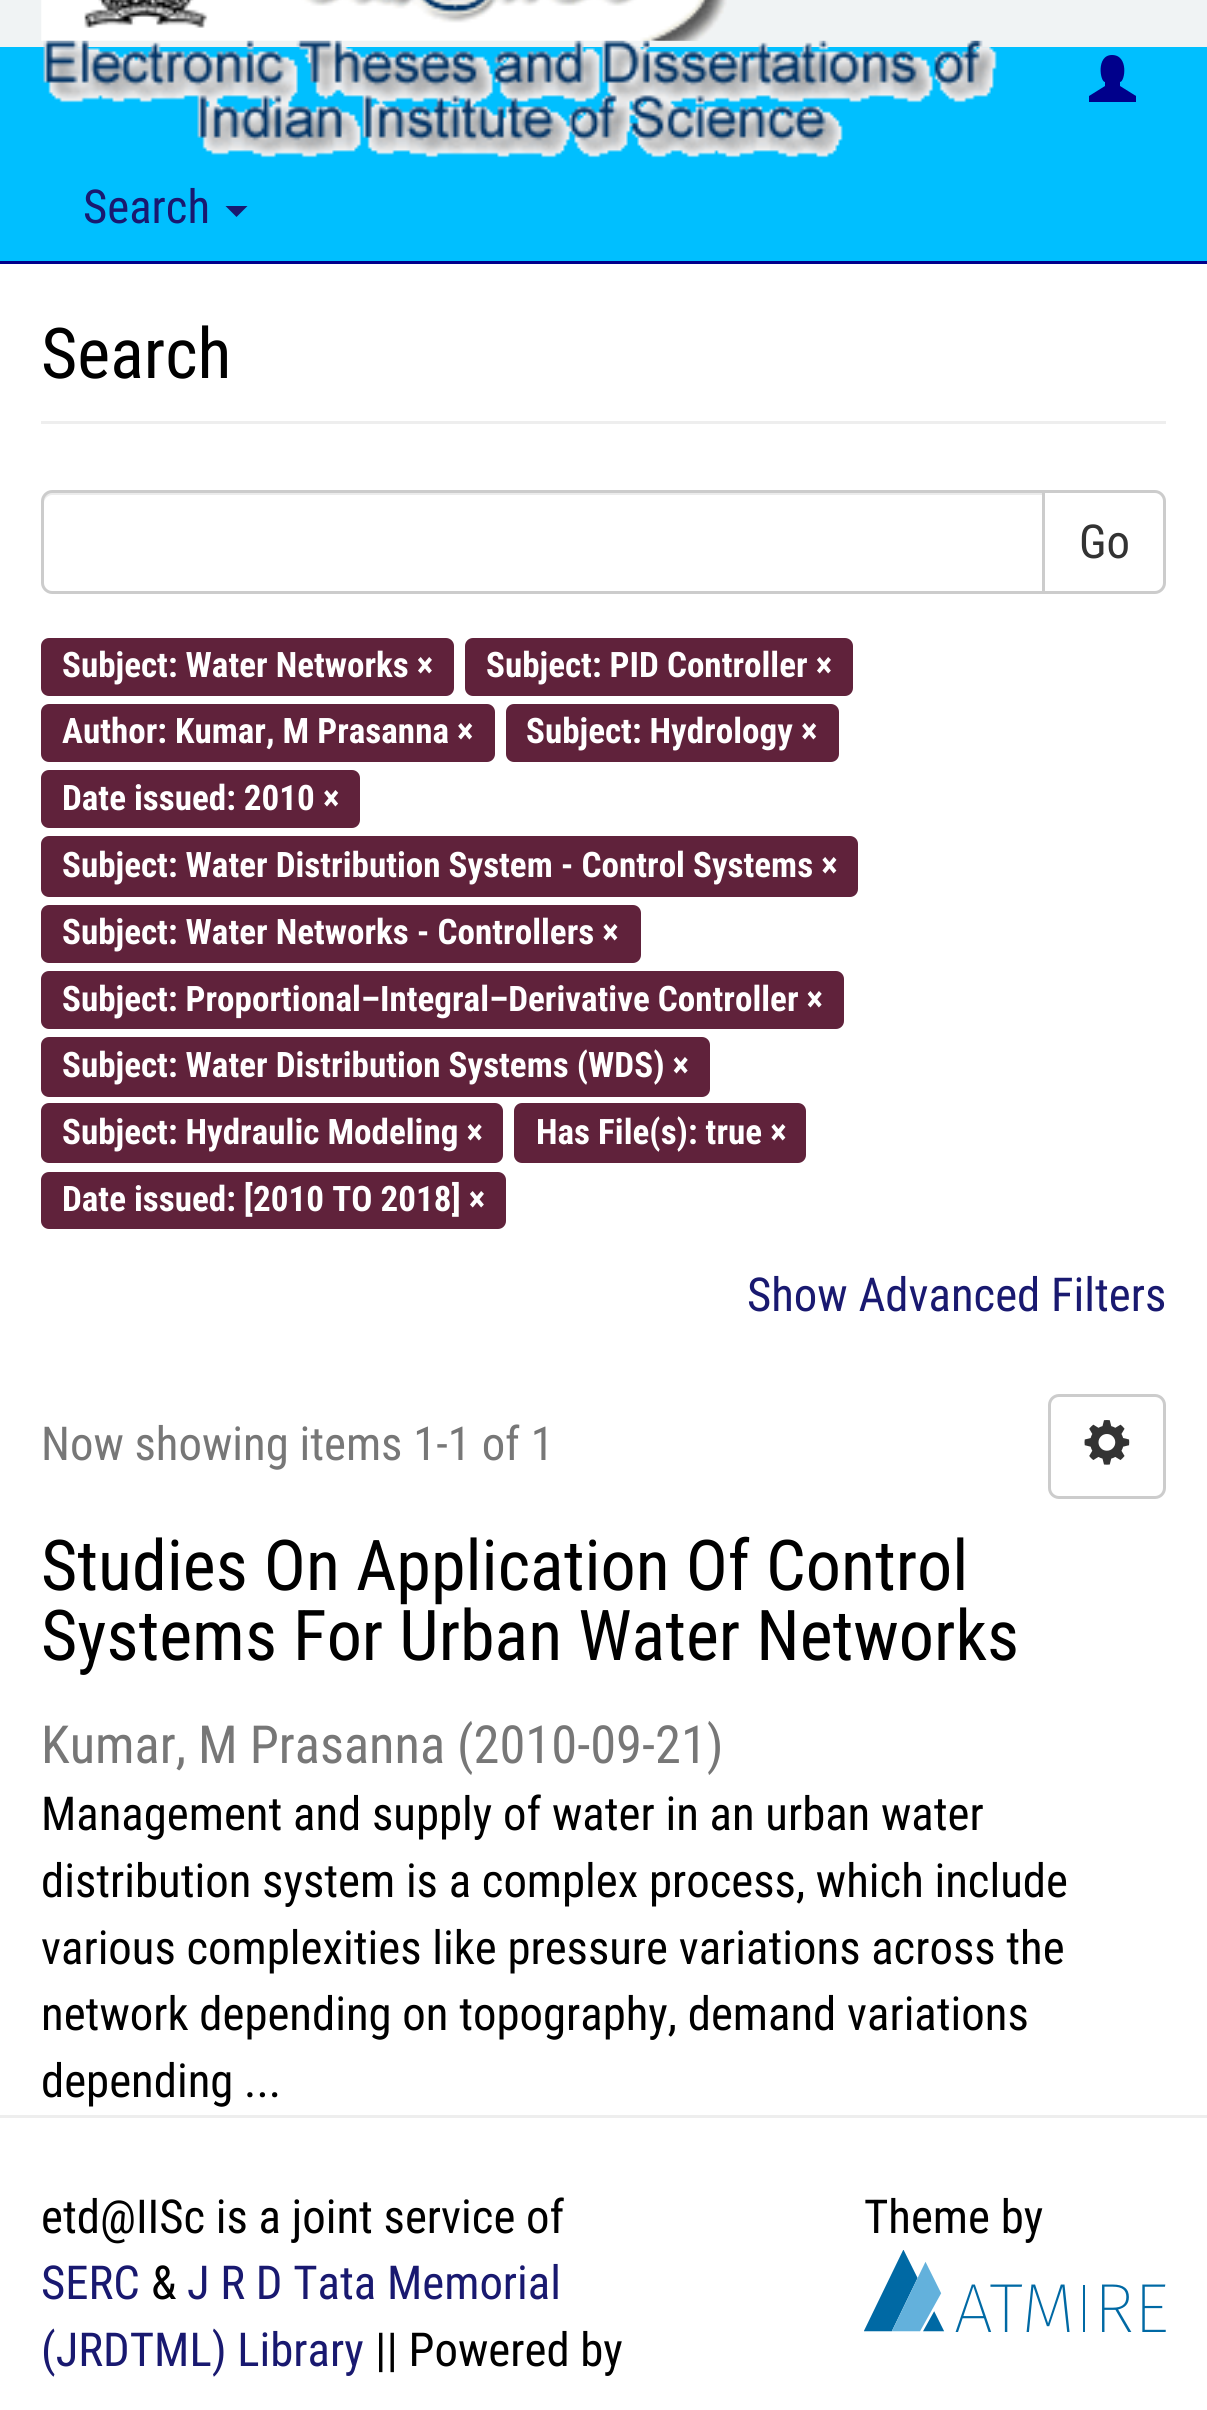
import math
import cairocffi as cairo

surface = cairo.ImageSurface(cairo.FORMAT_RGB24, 1207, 2410)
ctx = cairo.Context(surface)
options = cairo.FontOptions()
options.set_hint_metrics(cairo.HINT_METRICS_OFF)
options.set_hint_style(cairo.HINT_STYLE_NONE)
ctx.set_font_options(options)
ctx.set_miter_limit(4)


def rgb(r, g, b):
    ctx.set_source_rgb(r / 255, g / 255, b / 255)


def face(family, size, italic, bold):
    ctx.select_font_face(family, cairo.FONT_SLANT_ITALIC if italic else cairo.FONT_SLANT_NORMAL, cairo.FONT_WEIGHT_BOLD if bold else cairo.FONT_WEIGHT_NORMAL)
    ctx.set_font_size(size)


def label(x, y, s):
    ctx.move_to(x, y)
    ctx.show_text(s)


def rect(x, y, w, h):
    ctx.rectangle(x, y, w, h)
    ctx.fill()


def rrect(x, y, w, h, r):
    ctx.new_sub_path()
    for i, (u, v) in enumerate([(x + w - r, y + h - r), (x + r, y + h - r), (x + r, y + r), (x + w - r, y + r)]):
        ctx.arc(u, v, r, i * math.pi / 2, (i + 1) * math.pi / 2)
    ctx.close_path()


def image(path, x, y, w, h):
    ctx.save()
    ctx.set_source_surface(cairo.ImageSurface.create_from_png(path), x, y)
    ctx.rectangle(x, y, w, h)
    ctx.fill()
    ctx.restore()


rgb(0, 191, 255)
ctx.paint()
rgb(240, 243, 244)
rect(0, 0, 1207, 47)
image('image0.png', 41, 0, 686, 41)
image('image1.png', 43, 40, 954, 118)
rgb(0, 0, 139)
ctx.new_path()
ctx.move_to(1089, 102)
ctx.line_to(1089, 96)
ctx.line_to(1105, 86)
ctx.line_to(1105, 82)
ctx.curve_to(1100, 82, 1096, 55, 1112, 55)
ctx.curve_to(1129, 55, 1125, 82, 1120, 82)
ctx.line_to(1120, 86)
ctx.line_to(1136, 96)
ctx.line_to(1136, 102)
ctx.close_path()
ctx.fill()
rect(0, 261, 1207, 3)
face('Roboto Condensed', 46.75, 0, 0)
rgb(25, 25, 112)
label(83, 223, 'Search')
ctx.new_path()
ctx.move_to(225.5, 206)
ctx.line_to(247.5, 206)
ctx.line_to(236.5, 217)
ctx.close_path()
ctx.fill()
rgb(255, 255, 255)
rect(0, 264, 1207, 2146)
rgb(238, 238, 238)
rect(41, 421, 1125, 3)
face('Roboto Condensed', 70.1, 0, 0)
rgb(0, 0, 0)
label(41, 378, 'Search')
ctx.new_path()
ctx.move_to(1043.5, 491.5)
ctx.line_to(1155, 491.5)
ctx.curve_to(1160, 491.5, 1164.5, 496, 1164.5, 501)
ctx.line_to(1164.5, 583)
ctx.curve_to(1164.5, 588, 1160, 592.5, 1155, 592.5)
ctx.line_to(1043.5, 592.5)
ctx.close_path()
rgb(204, 204, 204)
ctx.set_line_width(3)
ctx.stroke()
rgb(255, 255, 255)
ctx.new_path()
ctx.move_to(52, 490)
ctx.line_to(1045, 490)
ctx.line_to(1045, 594)
ctx.line_to(52, 594)
ctx.curve_to(46, 594, 41, 589, 41, 583)
ctx.line_to(41, 501)
ctx.curve_to(41, 495, 46, 490, 52, 490)
ctx.close_path()
ctx.fill()
rgb(236, 236, 236)
ctx.new_path()
ctx.move_to(52, 495)
ctx.line_to(1042, 495)
ctx.line_to(1042, 492)
ctx.line_to(52, 492)
ctx.curve_to(48, 492, 44, 496, 44, 500)
ctx.line_to(44, 503)
ctx.curve_to(44, 499, 48, 495, 52, 495)
ctx.close_path()
ctx.fill()
ctx.new_path()
ctx.move_to(52, 491.5)
ctx.line_to(1043.5, 491.5)
ctx.line_to(1043.5, 592.5)
ctx.line_to(52, 592.5)
ctx.curve_to(47, 592.5, 42.5, 588, 42.5, 583)
ctx.line_to(42.5, 501)
ctx.curve_to(42.5, 496, 47, 491.5, 52, 491.5)
ctx.close_path()
rgb(204, 204, 204)
ctx.stroke()
face('Roboto Condensed', 46.75, 0, 0)
rgb(51, 51, 51)
label(1079, 558, 'Go')
rgb(96, 34, 59)
rrect(41, 638, 413, 58, 8)
ctx.fill()
face('Roboto Condensed', 35.1, 0, 1)
rgb(255, 255, 255)
label(62, 677, 'Subject: Water Networks ×')
rgb(96, 34, 59)
rrect(465, 638, 388, 58, 8)
ctx.fill()
rgb(255, 255, 255)
label(486, 677, 'Subject: PID Controller ×')
rgb(96, 34, 59)
rrect(41, 704, 454, 58, 8)
ctx.fill()
rgb(255, 255, 255)
label(62, 743, 'Author: Kumar, M Prasanna ×')
rgb(96, 34, 59)
rrect(506, 704, 333, 58, 8)
ctx.fill()
rgb(255, 255, 255)
label(526, 743, 'Subject: Hydrology ×')
rgb(96, 34, 59)
rrect(41, 770, 319, 58, 8)
ctx.fill()
rgb(255, 255, 255)
label(62, 810, 'Date issued: 2010 ×')
rgb(96, 34, 59)
rrect(41, 836, 817, 61, 8)
ctx.fill()
rgb(255, 255, 255)
label(62, 877, 'Subject: Water Distribution System - Control Systems ×')
rgb(96, 34, 59)
rrect(41, 905, 600, 58, 8)
ctx.fill()
rgb(255, 255, 255)
label(62, 944, 'Subject: Water Networks - Controllers ×')
rgb(96, 34, 59)
rrect(41, 971, 803, 58, 8)
ctx.fill()
rgb(255, 255, 255)
label(62, 1011, 'Subject: Proportional–Integral–Derivative Controller ×')
rgb(96, 34, 59)
rrect(41, 1037, 669, 60, 8)
ctx.fill()
rgb(255, 255, 255)
label(62, 1077, 'Subject: Water Distribution Systems (WDS) ×')
rgb(96, 34, 59)
rrect(41, 1103, 462, 60, 8)
ctx.fill()
rgb(255, 255, 255)
label(62, 1144, 'Subject: Hydraulic Modeling ×')
rgb(96, 34, 59)
rrect(514, 1103, 292, 60, 8)
ctx.fill()
rgb(255, 255, 255)
label(536, 1144, 'Has File(s): true ×')
rgb(96, 34, 59)
rrect(41, 1172, 465, 57, 8)
ctx.fill()
rgb(255, 255, 255)
label(62, 1211, 'Date issued: [2010 TO 2018] ×')
face('Roboto Condensed', 46.75, 0, 0)
rgb(25, 25, 112)
label(747, 1311, 'Show Advanced Filters')
rgb(119, 119, 119)
label(41, 1460, 'Now showing items 1-1 of 1')
rrect(1049.5, 1395.5, 115, 102, 9.5)
rgb(204, 204, 204)
ctx.stroke()
image('image2.png', 1084, 1420, 46, 45)
face('Roboto Condensed', 70.1, 0, 0)
rgb(0, 0, 0)
label(41, 1590, 'Studies On Application Of Control')
label(41, 1660, 'Systems For Urban Water Networks')
face('Roboto Condensed', 52.5, 0, 0)
rgb(119, 119, 119)
label(41, 1763, 'Kumar, M Prasanna')
label(457, 1763, '(2010-09-21)')
face('Roboto Condensed', 46.75, 0, 0)
rgb(0, 0, 0)
label(41, 1830, 'Management and supply of water in an urban water')
label(41, 1897, 'distribution system is a complex process, which include')
label(41, 1964, 'various complexities like pressure variations across the')
label(41, 2030, 'network depending on topography, demand variations')
label(41, 2097, 'depending ...')
rgb(238, 238, 238)
rect(0, 2115, 1207, 3)
rgb(0, 0, 0)
label(41, 2233, 'etd@IISc is a joint service of')
rgb(25, 25, 112)
label(41, 2299, 'SERC')
rgb(0, 0, 0)
label(151, 2299, '&')
rgb(25, 25, 112)
label(187, 2299, 'J R D Tata Memorial')
label(41, 2366, '(JRDTML) Library')
rgb(0, 0, 0)
label(375, 2366, '|| Powered by')
label(864, 2233, 'Theme by')
image('image3.png', 864, 2250, 302, 82)
surface.write_to_png('render.png')
